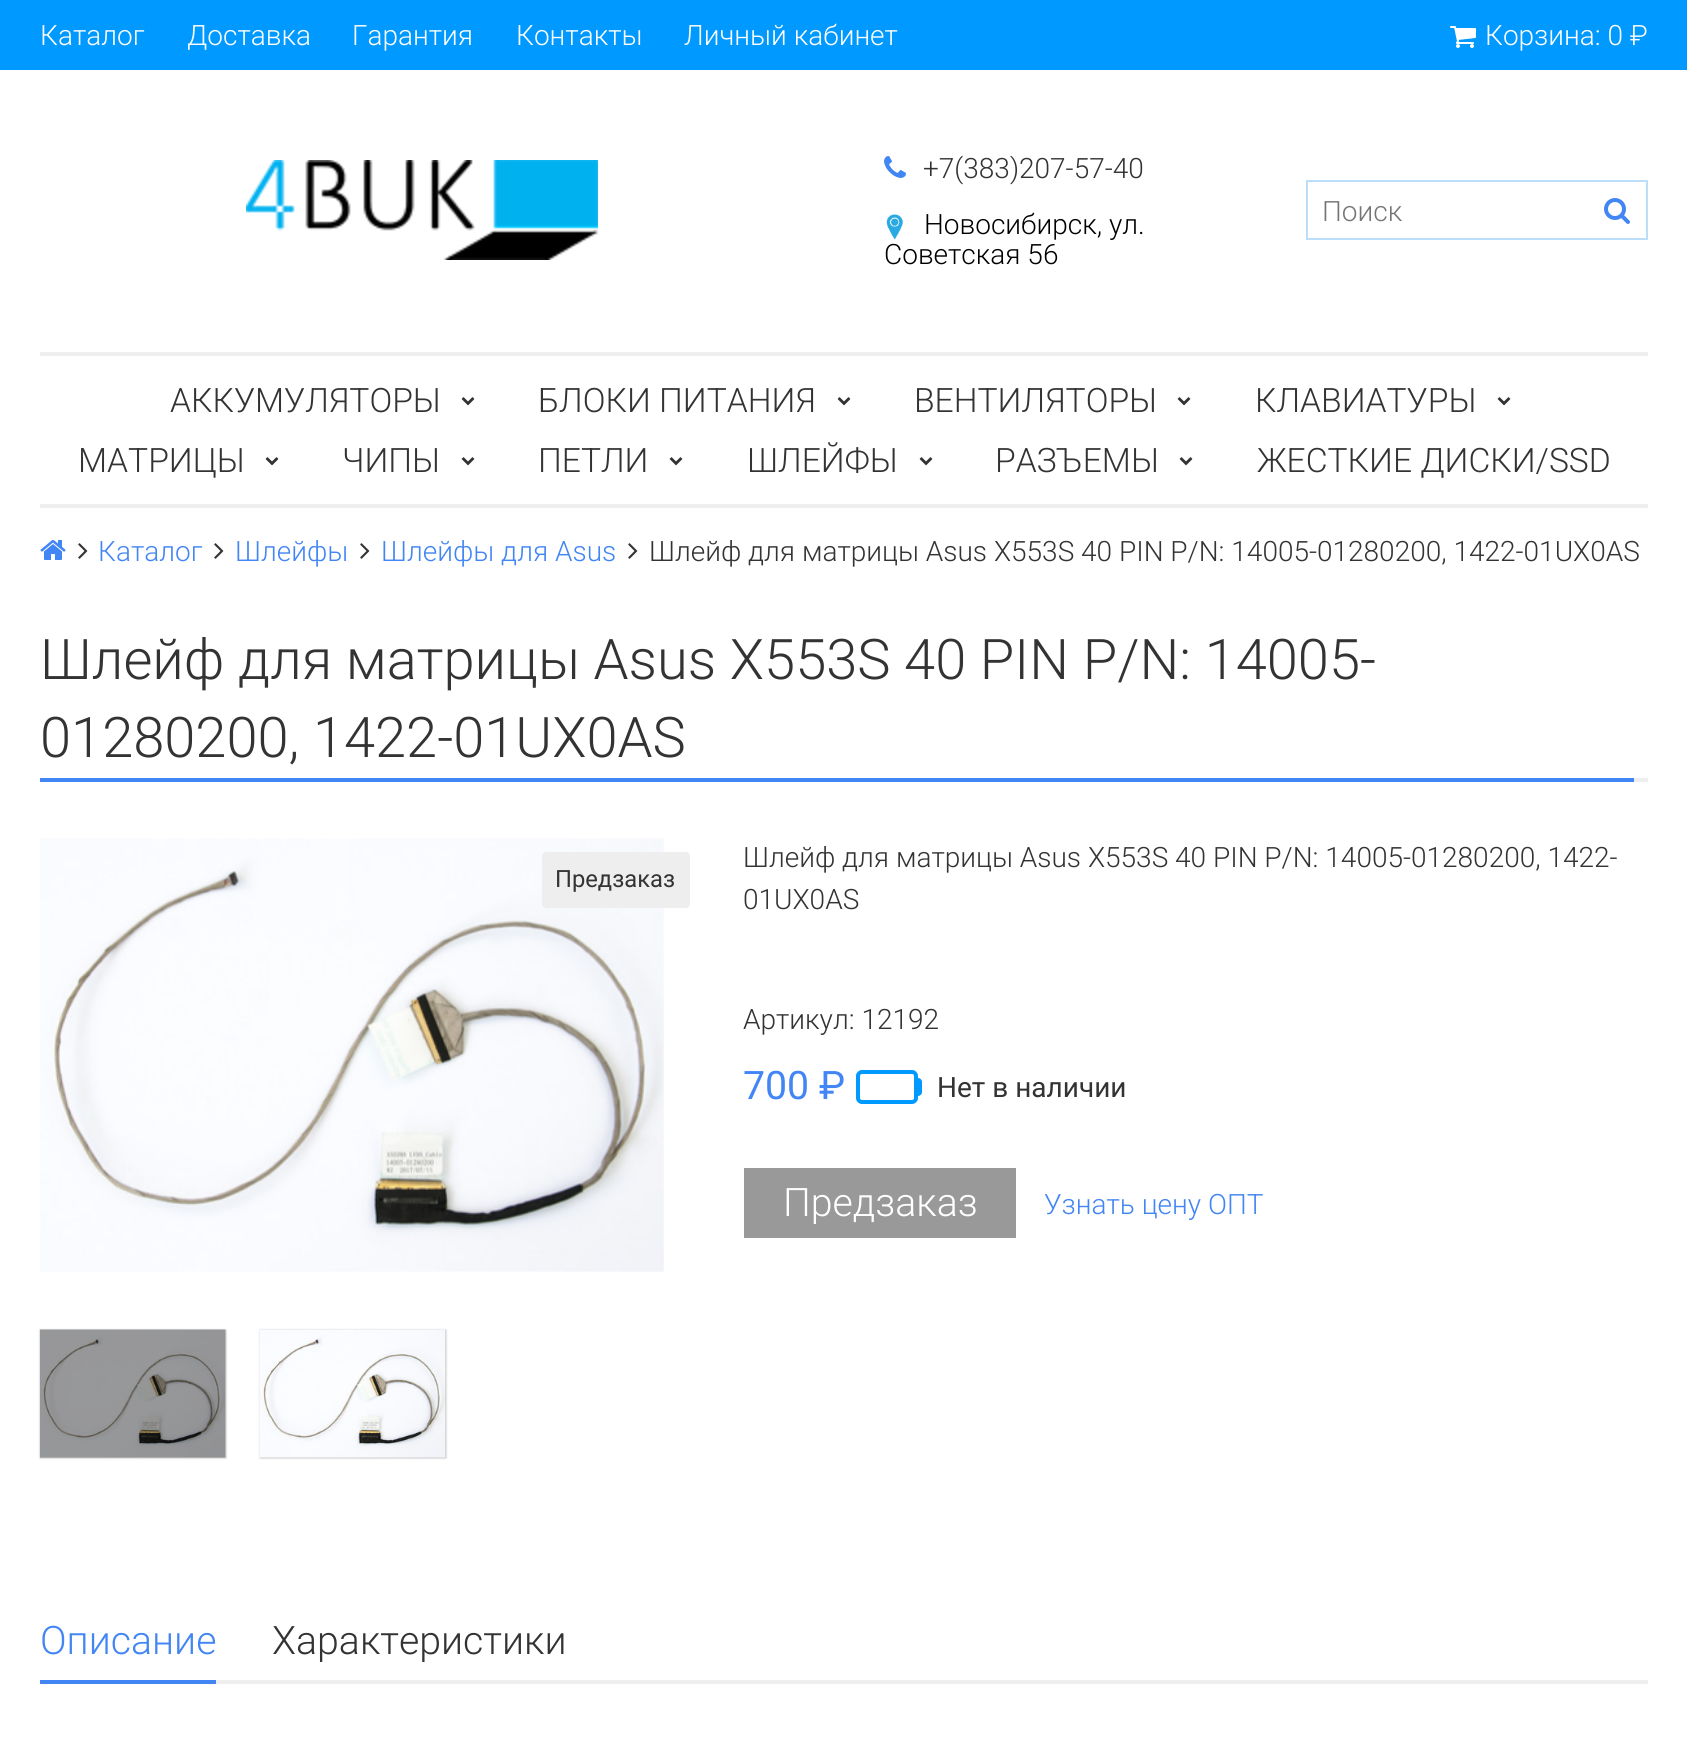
import math
import cairocffi as cairo

surface = cairo.ImageSurface(cairo.FORMAT_RGB24, 1687, 1750)
ctx = cairo.Context(surface)
options = cairo.FontOptions()
options.set_hint_metrics(cairo.HINT_METRICS_OFF)
options.set_hint_style(cairo.HINT_STYLE_NONE)
ctx.set_font_options(options)
ctx.set_miter_limit(4)


def rgb(r, g, b):
    ctx.set_source_rgb(r / 255, g / 255, b / 255)


def face(family, size, italic, bold):
    ctx.select_font_face(family, cairo.FONT_SLANT_ITALIC if italic else cairo.FONT_SLANT_NORMAL, cairo.FONT_WEIGHT_BOLD if bold else cairo.FONT_WEIGHT_NORMAL)
    ctx.set_font_size(size)


def label(x, y, s):
    ctx.move_to(x, y)
    ctx.show_text(s)


def rect(x, y, w, h):
    ctx.rectangle(x, y, w, h)
    ctx.fill()


def rrect(x, y, w, h, r):
    ctx.new_sub_path()
    for i, (u, v) in enumerate([(x + w - r, y + h - r), (x + r, y + h - r), (x + r, y + r), (x + w - r, y + r)]):
        ctx.arc(u, v, r, i * math.pi / 2, (i + 1) * math.pi / 2)
    ctx.close_path()


def soft_shadow(x, y, w, h, r, blur, alpha):
    ctx.push_group_with_content(cairo.CONTENT_ALPHA)
    ctx.set_operator(cairo.OPERATOR_SOURCE)
    for i in range(15, -16, -2):
        e = blur * i / 6
        if min(w, h) + 2 * e > 0:
            ctx.set_source_rgba(0, 0, 0, alpha * math.erfc((i - 1) / 8.5) / 2)
            rrect(x - e, y - e, w + 2 * e, h + 2 * e, max(0, min(r + e + blur * .6, min(w, h) / 2 + e)))
            ctx.fill()
    ctx.mask(ctx.pop_group())


def image(path, x, y, w, h):
    ctx.save()
    ctx.set_source_surface(cairo.ImageSurface.create_from_png(path), x, y)
    ctx.rectangle(x, y, w, h)
    ctx.fill()
    ctx.restore()


rgb(255, 255, 255)
ctx.paint()
rgb(0, 153, 255)
rect(0, 0, 1687, 70)
face('Roboto Light', 28, 0, 0)
rgb(255, 255, 255)
label(40, 45, 'Каталог')
label(187, 45, 'Доставка')
label(352, 45, 'Гарантия')
label(516, 45, 'Контакты')
label(684, 45, 'Личный кабинет')
image('image0.png', 1450, 26, 26, 22)
label(1485, 45, 'Корзина: 0 ₽')
rgb(238, 238, 238)
rect(40, 352, 1608, 4)
image('image1.png', 246, 160, 352, 100)
image('image2.png', 884, 156, 22, 22)
rgb(51, 51, 51)
label(923, 178, '+7(383)207-57-40')
image('image3.png', 886, 214, 18, 26)
rgb(0, 0, 0)
label(924, 234, 'Новосибирск, ул.')
label(884, 264, 'Советская 56')
ctx.rectangle(1307, 181, 340, 58)
rgb(187, 222, 251)
ctx.stroke()
rgb(117, 117, 117)
label(1322, 221, 'Поиск')
image('image4.png', 1604, 198, 26, 26)
rgb(238, 238, 238)
rect(40, 504, 1608, 4)
face('Roboto Light', 33.6, 0, 0)
rgb(51, 51, 51)
label(170, 412, 'АККУМУЛЯТОРЫ')
image('image5.png', 461, 397, 14, 9)
label(538, 412, 'БЛОКИ ПИТАНИЯ')
image('image5.png', 837, 397, 14, 9)
label(914, 412, 'ВЕНТИЛЯТОРЫ')
image('image5.png', 1177, 397, 14, 9)
label(1255, 412, 'КЛАВИАТУРЫ')
image('image5.png', 1497, 397, 14, 9)
label(78, 472, 'МАТРИЦЫ')
image('image5.png', 265, 457, 14, 9)
label(342, 472, 'ЧИПЫ')
image('image5.png', 461, 457, 14, 9)
label(538, 472, 'ПЕТЛИ')
image('image5.png', 669, 457, 14, 9)
label(747, 472, 'ШЛЕЙФЫ')
image('image5.png', 919, 457, 14, 9)
label(995, 472, 'РАЗЪЕМЫ')
image('image5.png', 1179, 457, 14, 9)
label(1257, 472, 'ЖЕСТКИЕ ДИСКИ/SSD')
image('image6.png', 40, 540, 26, 20)
image('image7.png', 78, 543, 10, 16)
face('Roboto Light', 28, 0, 0)
rgb(66, 133, 244)
label(98, 561, 'Каталог')
image('image7.png', 214, 543, 10, 16)
label(235, 561, 'Шлейфы')
image('image7.png', 360, 543, 10, 16)
label(381, 561, 'Шлейфы для Asus')
image('image7.png', 628, 543, 10, 16)
rgb(51, 51, 51)
label(649, 561, 'Шлейф для матрицы Asus X553S 40 PIN P/N: 14005-01280200, 1422-01UX0AS')
rgb(238, 238, 238)
rect(1634, 778, 14, 4)
rgb(66, 133, 244)
rect(40, 778, 1594, 4)
face('Roboto Light', 56, 0, 0)
rgb(51, 51, 51)
label(40, 679, 'Шлейф для матрицы Asus X553S 40 PIN P/N: 14005-')
label(40, 757, '01280200, 1422-01UX0AS')
image('image8.png', 40, 838, 624, 434)
rgb(238, 238, 238)
rrect(542, 852, 148, 56, 4)
ctx.fill()
face('Roboto', 23.75, 0, 0)
rgb(51, 51, 51)
label(555, 887, 'Предзаказ')
rgb(0, 0, 0)
soft_shadow(40, 1330, 186, 128, 0, 1, 0.3)
image('image9.png', 40, 1329, 186, 129)
soft_shadow(260, 1330, 186, 128, 0, 1, 0.3)
image('image10.png', 259, 1329, 187, 129)
face('Roboto Light', 28, 0, 0)
rgb(51, 51, 51)
label(743, 867, 'Шлейф для матрицы Asus X553S 40 PIN P/N: 14005-01280200, 1422-')
label(743, 909, '01UX0AS')
label(743, 1029, 'Артикул: 12192')
face('Roboto', 39.25, 0, 0)
rgb(66, 133, 244)
label(743, 1099, '700 ₽')
rrect(858, 1072, 58, 30, 4)
rgb(0, 153, 255)
ctx.set_line_width(4)
ctx.stroke()
rrect(914, 1078, 8, 18, 4)
ctx.fill()
face('Roboto', 28, 0, 0)
rgb(51, 51, 51)
label(937, 1097, 'Нет в наличии')
rgb(153, 153, 153)
rect(744, 1168, 272, 70)
face('Roboto Light', 39.25, 0, 0)
rgb(255, 255, 255)
label(783, 1216, 'Предзаказ')
face('Roboto Light', 28, 0, 0)
rgb(66, 133, 244)
label(1044, 1214, 'Узнать цену ОПТ')
rgb(238, 238, 238)
rect(216, 1680, 1432, 4)
rgb(66, 133, 244)
rect(40, 1680, 176, 4)
face('Roboto Light', 39.25, 0, 0)
label(40, 1654, 'Описание')
rgb(51, 51, 51)
label(272, 1654, 'Характеристики')
surface.write_to_png('render.png')
